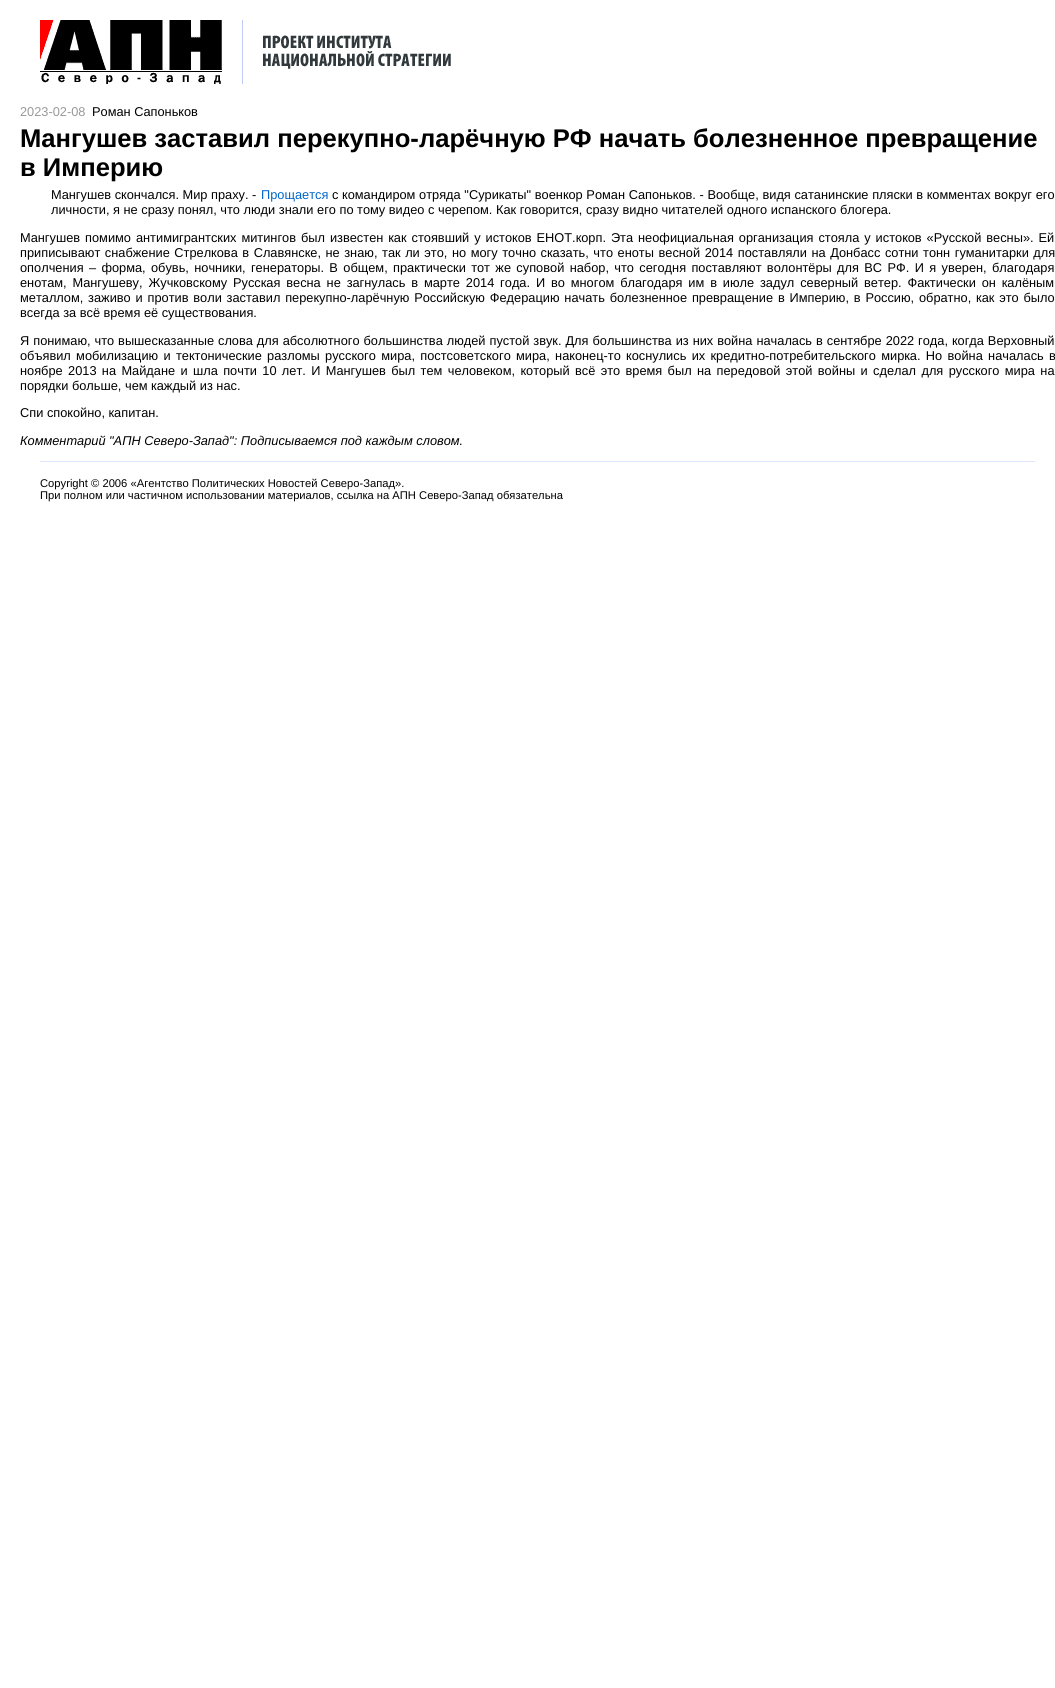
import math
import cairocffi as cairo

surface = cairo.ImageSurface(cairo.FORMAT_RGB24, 1055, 1688)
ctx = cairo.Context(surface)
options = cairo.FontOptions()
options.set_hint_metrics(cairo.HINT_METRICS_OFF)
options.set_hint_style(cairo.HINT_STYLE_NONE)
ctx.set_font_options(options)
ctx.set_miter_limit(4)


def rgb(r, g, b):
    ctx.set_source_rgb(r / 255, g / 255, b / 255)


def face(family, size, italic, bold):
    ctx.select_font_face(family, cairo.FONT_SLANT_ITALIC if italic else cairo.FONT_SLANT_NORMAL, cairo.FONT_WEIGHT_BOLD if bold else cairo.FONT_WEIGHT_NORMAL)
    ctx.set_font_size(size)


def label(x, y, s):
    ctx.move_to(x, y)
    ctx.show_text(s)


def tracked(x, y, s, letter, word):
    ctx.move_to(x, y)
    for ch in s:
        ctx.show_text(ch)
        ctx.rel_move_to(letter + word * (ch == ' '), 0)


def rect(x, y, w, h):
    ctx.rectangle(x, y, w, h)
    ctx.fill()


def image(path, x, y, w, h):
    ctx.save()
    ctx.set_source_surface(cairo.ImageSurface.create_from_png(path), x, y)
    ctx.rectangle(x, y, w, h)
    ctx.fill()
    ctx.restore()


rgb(255, 255, 255)
ctx.paint()
rgb(192, 203, 245)
rect(242, 20, 1, 64)
image('image0.png', 40, 20, 182, 64)
image('image1.png', 263, 35, 188, 34)
face('Liberation Sans', 12.8, 0, 0)
rgb(153, 153, 153)
label(20, 116, '2023-02-08')
rgb(0, 0, 0)
label(92, 116, 'Роман Сапоньков')
face('Liberation Sans', 25.6, 0, 1)
label(20, 147, 'Мангушев заставил перекупно-ларёчную РФ начать болезненное превращение')
label(20, 176, 'в Империю')
face('Liberation Sans', 12.8, 0, 0)
label(51, 199, 'Мангушев скончался. Мир праху. -')
rgb(0, 102, 203)
label(261, 199, 'Прощается')
rgb(0, 0, 0)
tracked(332, 199, 'с командиром отряда "Сурикаты" военкор Роман Сапоньков. - Вообще, видя сатанинские пляски в комментах вокруг его', 0, 0.1)
label(51, 214, 'личности, я не сразу понял, что люди знали его по тому видео с черепом. Как говорится, сразу видно читателей одного испанского блогера.')
tracked(20, 242, 'Мангушев помимо антимигрантских митингов был известен как стоявший у истоков ЕНОТ.корп. Эта неофициальная организация стояла у истоков «Русской весны». Ей', 0, 1.4)
tracked(20, 257, 'приписывают снабжение Стрелкова в Славянске, не знаю, так ли это, но могу точно сказать, что еноты весной 2014 поставляли на Донбасс сотни тонн гуманитарки для', 0, 1)
tracked(20, 272, 'ополчения – форма, обувь, ночники, генераторы. В общем, практически тот же суповой набор, что сегодня поставляют волонтёры для ВС РФ. И я уверен, благодаря', 0, 1.8)
tracked(20, 287, 'енотам, Мангушеву, Жучковскому Русская весна не загнулась в марте 2014 года. И во многом благодаря им в июле задул северный ветер. Фактически он калёным', 0, 2.3)
tracked(20, 302, 'металлом, заживо и против воли заставил перекупно-ларёчную Российскую Федерацию начать болезненное превращение в Империю, в Россию, обратно, как это было', 0, 1.25)
label(20, 317, 'всегда за всё время её существования.')
tracked(20, 345, 'Я понимаю, что вышесказанные слова для абсолютного большинства людей пустой звук. Для большинства из них война началась в сентябре 2022 года, когда Верховный', 0, 0.4)
tracked(20, 360, 'объявил мобилизацию и тектонические разломы русского мира, постсоветского мира, наконец-то коснулись их кредитно-потребительского мирка. Но война началась в', 0, 1.75)
tracked(20, 375, 'ноябре 2013 на Майдане и шла почти 10 лет. И Мангушев был тем человеком, который всё это время был на передовой этой войны и сделал для русского мира на', 0, 1.8)
label(20, 390, 'порядки больше, чем каждый из нас.')
label(20, 417, 'Спи спокойно, капитан.')
face('Liberation Sans', 12.8, 1, 0)
label(20, 445, 'Комментарий "АПН Северо-Запад": Подписываемся под каждым словом.')
rgb(222, 229, 255)
rect(40, 461, 995, 1)
face('Liberation Sans', 11.2, 0, 0)
rgb(0, 0, 0)
label(40, 487, 'Copyright © 2006 «Агентство Политических Новостей Северо-Запад».')
label(40, 499, 'При полном или частичном использовании материалов, ссылка на АПН Северо-Запад обязательна')
surface.write_to_png('render.png')
